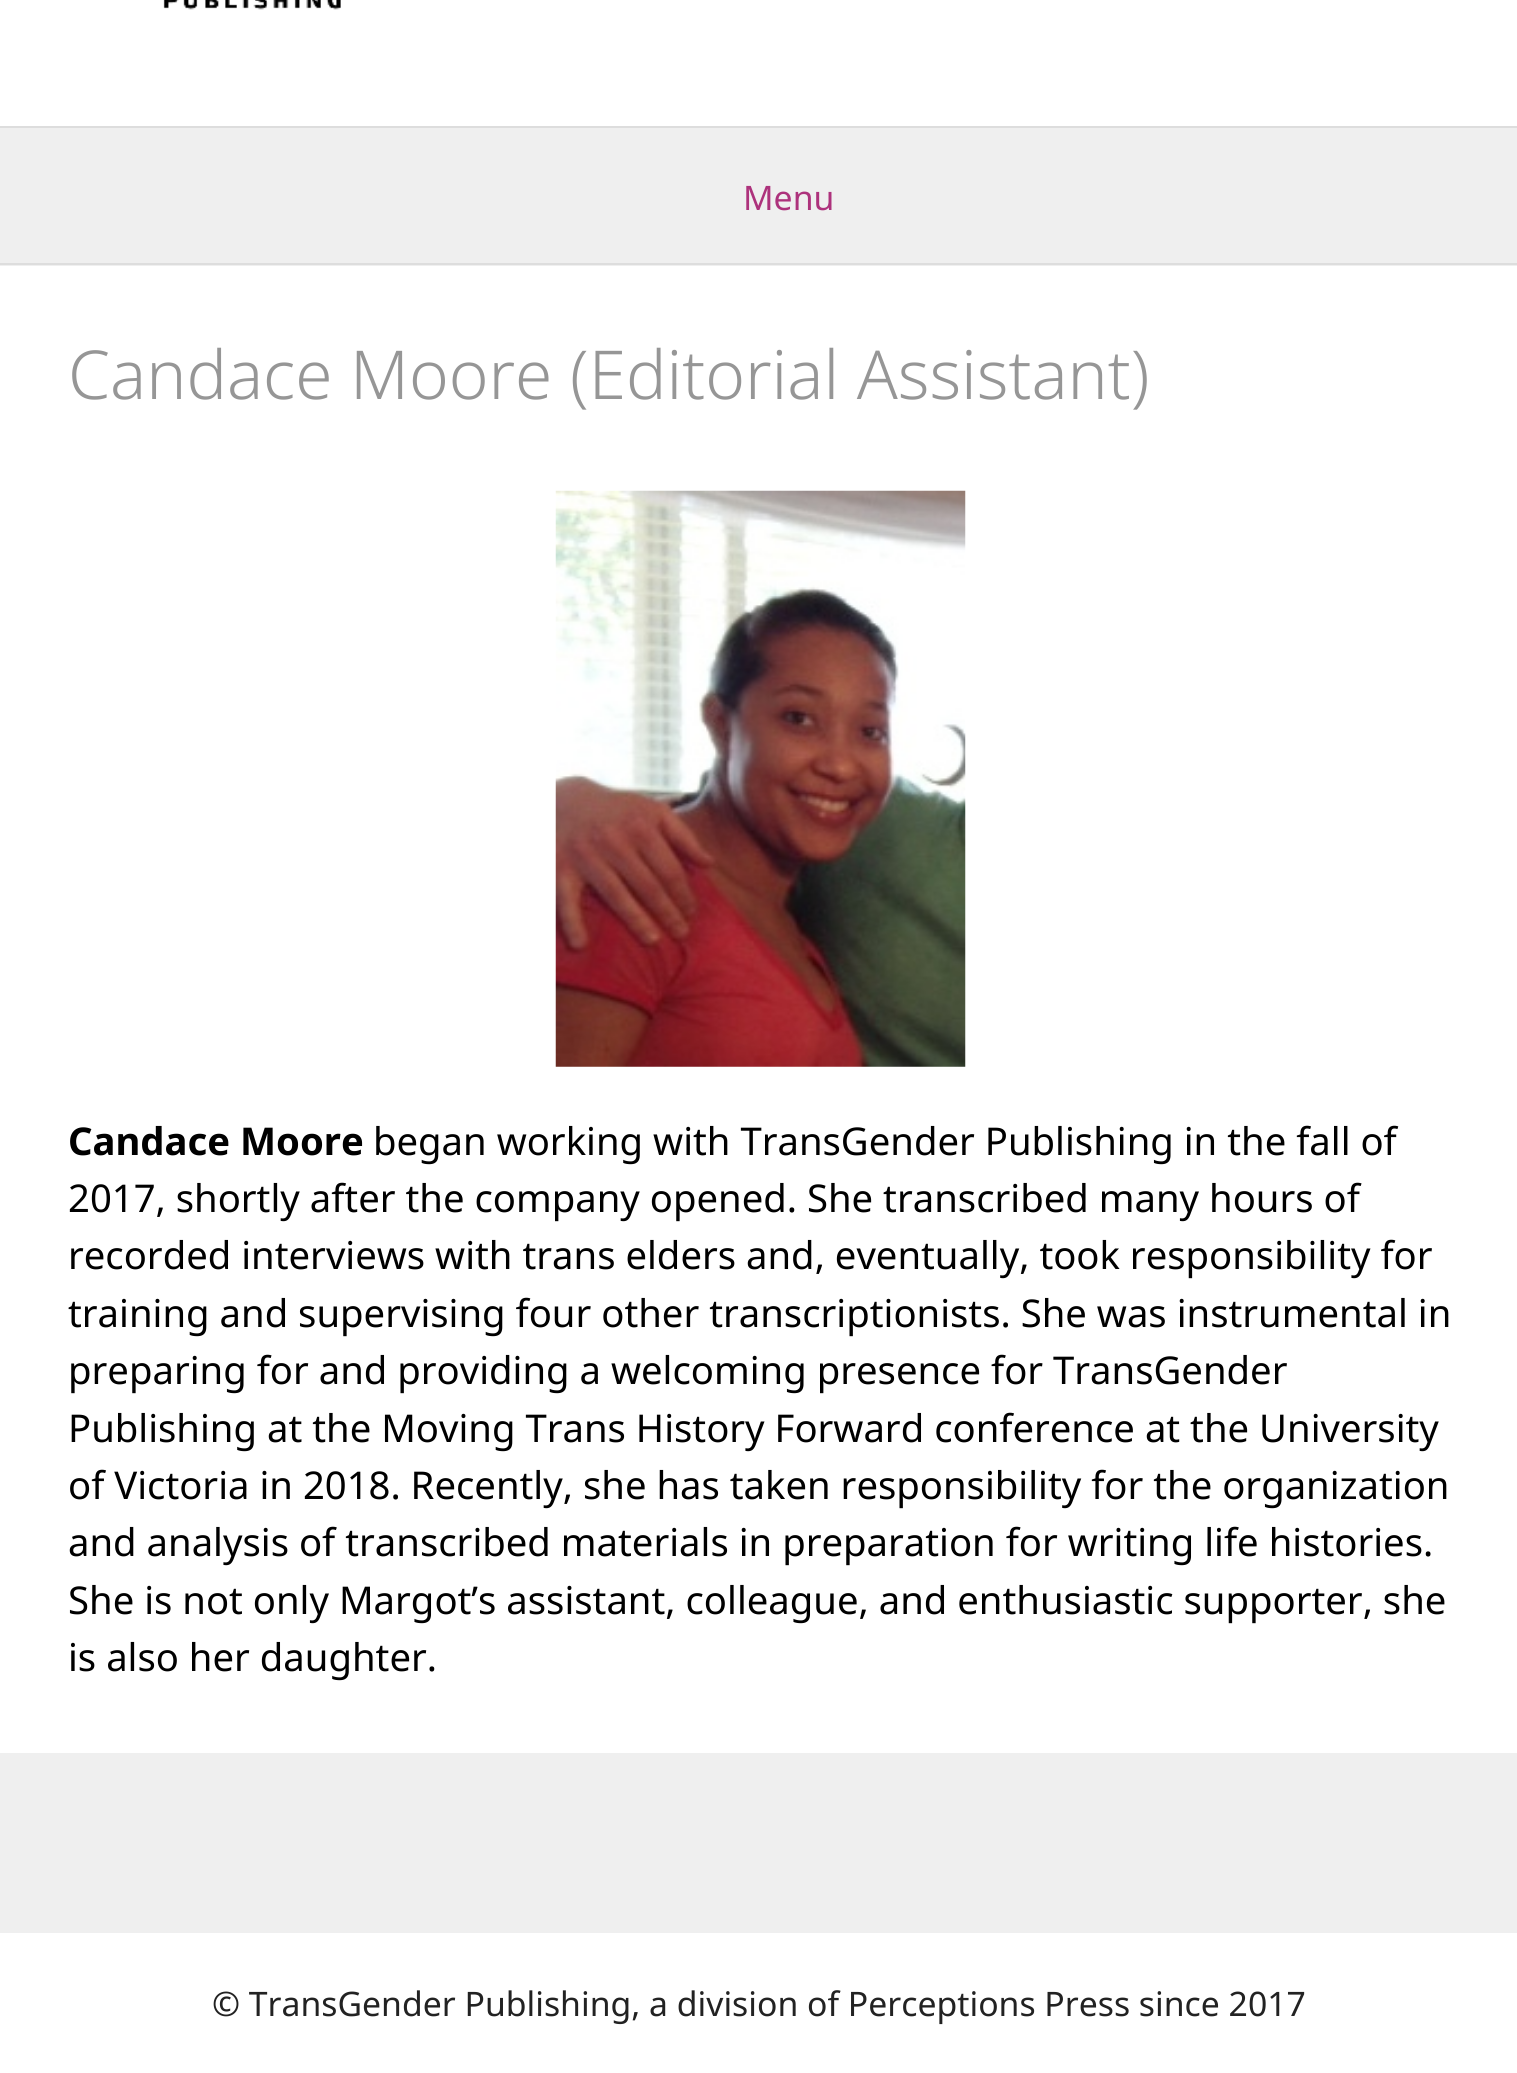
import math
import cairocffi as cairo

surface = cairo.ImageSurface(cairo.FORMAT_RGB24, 1517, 2073)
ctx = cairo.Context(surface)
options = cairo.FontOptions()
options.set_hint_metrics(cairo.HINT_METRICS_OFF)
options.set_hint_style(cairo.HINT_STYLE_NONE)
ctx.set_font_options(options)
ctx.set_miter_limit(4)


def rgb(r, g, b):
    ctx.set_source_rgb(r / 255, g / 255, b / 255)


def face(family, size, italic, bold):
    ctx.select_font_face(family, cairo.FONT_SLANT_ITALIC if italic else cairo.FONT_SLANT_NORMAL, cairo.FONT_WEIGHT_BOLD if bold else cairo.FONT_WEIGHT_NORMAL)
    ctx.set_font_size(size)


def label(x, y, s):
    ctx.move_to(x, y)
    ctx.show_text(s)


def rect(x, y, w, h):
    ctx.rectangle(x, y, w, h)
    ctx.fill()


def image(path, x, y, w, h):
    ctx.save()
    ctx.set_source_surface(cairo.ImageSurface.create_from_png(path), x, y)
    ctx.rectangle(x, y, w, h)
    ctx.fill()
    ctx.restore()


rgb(255, 255, 255)
ctx.paint()
image('image0.png', 163, 0, 178, 10)
rgb(239, 239, 239)
rect(0, 128, 1517, 138)
rgb(221, 221, 221)
rect(0, 126, 1517, 2)
rect(0, 263, 1517, 2)
face('Noto Sans', 33.75, 0, 0)
rgb(173, 50, 124)
label(743, 210, 'Menu')
face('Noto Sans Light', 67.5, 0, 0)
rgb(150, 150, 150)
label(68, 399, 'Candace Moore (Editorial Assistant)')
image('image1.png', 555, 490, 411, 577)
face('Noto Sans', 38.25, 0, 1)
rgb(0, 0, 0)
label(68, 1155, 'Candace Moore')
face('Noto Sans', 38.25, 0, 0)
label(373, 1155, 'began working with TransGender Publishing in the fall of')
label(68, 1212, '2017, shortly after the company opened. She transcribed many hours of')
label(68, 1269, 'recorded interviews with trans elders and, eventually, took responsibility for')
label(68, 1327, 'training and supervising four other transcriptionists. She was instrumental in')
label(68, 1384, 'preparing for and providing a welcoming presence for TransGender')
label(68, 1442, 'Publishing at the Moving Trans History Forward conference at the University')
label(68, 1499, 'of Victoria in 2018. Recently, she has taken responsibility for the organization')
label(68, 1556, 'and analysis of transcribed materials in preparation for writing life histories.')
label(68, 1614, 'She is not only Margot’s assistant, colleague, and enthusiastic supporter, she')
label(68, 1671, 'is also her daughter.')
rgb(239, 239, 239)
rect(0, 1753, 1517, 180)
face('Noto Sans', 33.75, 0, 0)
rgb(34, 34, 34)
label(212, 2016, '© TransGender Publishing, a division of Perceptions Press since 2017')
surface.write_to_png('render.png')
